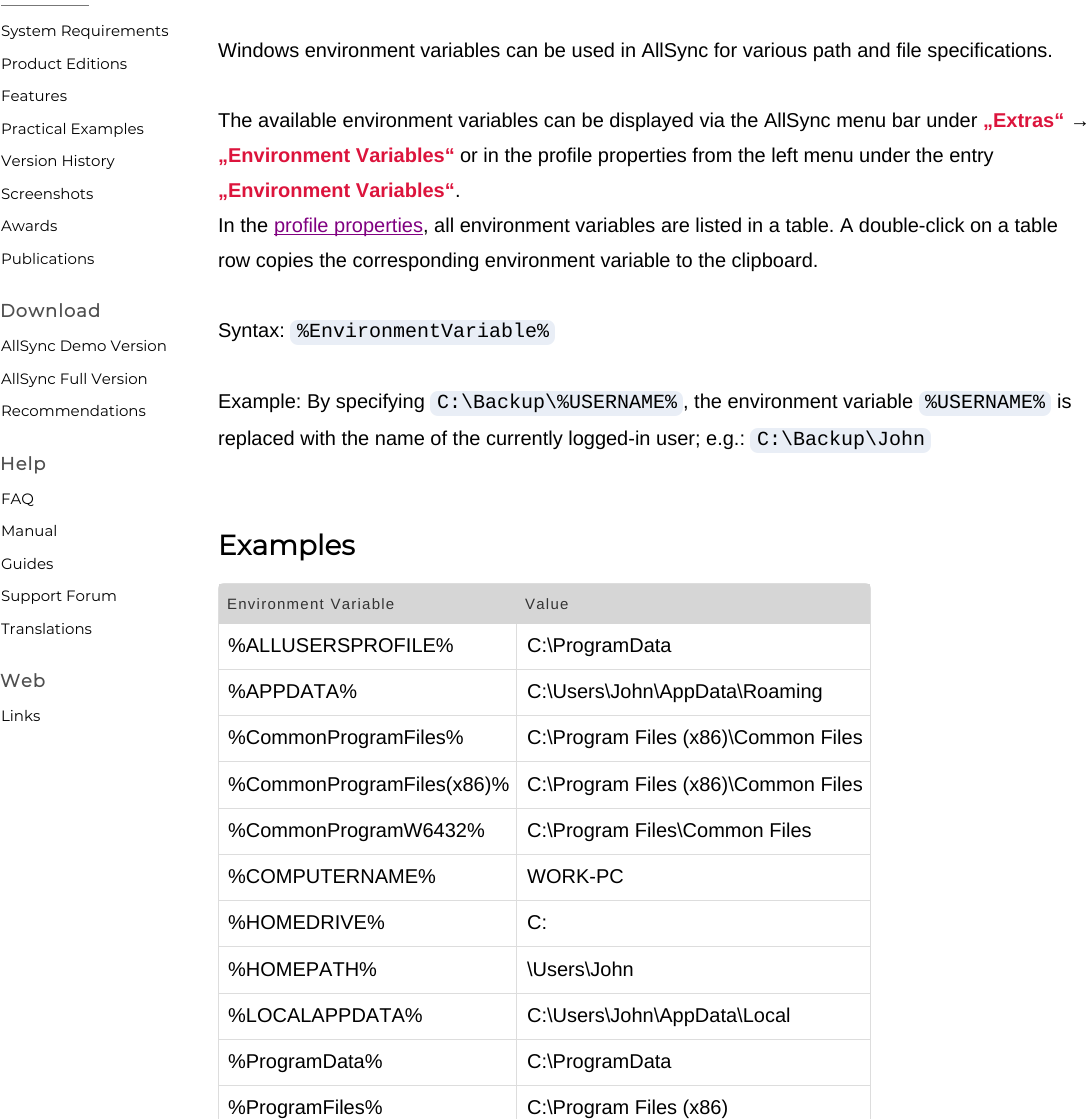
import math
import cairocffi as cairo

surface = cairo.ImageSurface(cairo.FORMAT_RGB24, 1089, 1119)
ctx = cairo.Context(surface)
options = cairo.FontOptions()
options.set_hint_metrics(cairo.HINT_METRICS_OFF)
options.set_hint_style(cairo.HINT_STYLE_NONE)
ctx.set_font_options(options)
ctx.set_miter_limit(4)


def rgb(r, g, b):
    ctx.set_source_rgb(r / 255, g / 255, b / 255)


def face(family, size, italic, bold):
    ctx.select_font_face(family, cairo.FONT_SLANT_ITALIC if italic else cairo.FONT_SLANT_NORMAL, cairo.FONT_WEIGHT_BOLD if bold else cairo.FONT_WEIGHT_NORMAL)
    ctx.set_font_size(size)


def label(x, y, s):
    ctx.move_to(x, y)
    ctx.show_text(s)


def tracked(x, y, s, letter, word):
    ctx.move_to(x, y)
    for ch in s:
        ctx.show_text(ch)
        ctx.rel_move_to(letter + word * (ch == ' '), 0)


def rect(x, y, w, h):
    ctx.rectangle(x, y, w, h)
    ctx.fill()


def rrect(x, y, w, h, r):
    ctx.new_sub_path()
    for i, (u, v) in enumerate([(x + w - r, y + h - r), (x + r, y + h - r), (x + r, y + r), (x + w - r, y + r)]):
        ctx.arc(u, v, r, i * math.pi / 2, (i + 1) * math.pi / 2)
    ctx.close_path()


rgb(255, 255, 255)
ctx.paint()
rgb(119, 119, 119)
rect(1, 5, 88, 1)
face('Montserrat', 15, 0, 0)
rgb(0, 0, 0)
label(1, 36, 'System Requirements')
label(1, 69, 'Product Editions')
label(1, 101, 'Features')
label(1, 134, 'Practical Examples')
label(1, 166, 'Version History')
label(1, 199, 'Screenshots')
label(1, 231, 'Awards')
label(1, 264, 'Publications')
face('Montserrat', 18, 0, 1)
rgb(79, 79, 79)
tracked(0, 317, 'Download', 1, 0)
face('Montserrat', 15, 0, 0)
rgb(0, 0, 0)
label(1, 351, 'AllSync Demo Version')
label(1, 384, 'AllSync Full Version')
label(1, 416, 'Recommendations')
face('Montserrat', 18, 0, 1)
rgb(79, 79, 79)
tracked(0, 470, 'Help', 1, 0)
face('Montserrat', 15, 0, 0)
rgb(0, 0, 0)
label(1, 504, 'FAQ')
label(1, 536, 'Manual')
label(1, 569, 'Guides')
label(1, 601, 'Support Forum')
label(1, 634, 'Translations')
face('Montserrat', 18, 0, 1)
rgb(79, 79, 79)
tracked(0, 687, 'Web', 1, 0)
face('Montserrat', 15, 0, 0)
rgb(0, 0, 0)
label(1, 721, 'Links')
face('Liberation Sans', 20, 0, 0)
label(218, 57, 'Windows environment variables can be used in AllSync for various path and file specifications.')
label(218, 127, 'The available environment variables can be displayed via the AllSync menu bar under')
face('Liberation Sans', 20, 0, 1)
rgb(220, 20, 60)
label(983, 127, '„Extras“')
face('Liberation Sans', 20, 0, 0)
rgb(0, 0, 0)
label(1070, 127, '→')
face('Liberation Sans', 20, 0, 1)
rgb(220, 20, 60)
label(218, 162, '„Environment Variables“')
face('Liberation Sans', 20, 0, 0)
rgb(0, 0, 0)
label(460, 162, 'or in the profile properties from the left menu under the entry')
face('Liberation Sans', 20, 0, 1)
rgb(220, 20, 60)
label(218, 197, '„Environment Variables“')
face('Liberation Sans', 20, 0, 0)
rgb(0, 0, 0)
label(455, 197, '.')
label(218, 232, 'In the')
rgb(128, 0, 128)
rect(274, 234, 149, 1)
label(274, 232, 'profile properties')
rgb(0, 0, 0)
label(423, 232, ', all environment variables are listed in a table. A double-click on a table')
label(218, 267, 'row copies the corresponding environment variable to the clipboard.')
label(218, 337, 'Syntax:')
rgb(233, 238, 246)
rrect(290, 320, 265, 25, 8)
ctx.fill()
face('Liberation Mono', 20, 0, 0)
rgb(0, 0, 0)
label(297, 337, '%EnvironmentVariable%')
face('Liberation Sans', 20, 0, 0)
label(218, 408, 'Example: By specifying')
rgb(233, 238, 246)
rrect(430, 391, 253, 25, 8)
ctx.fill()
face('Liberation Mono', 20, 0, 0)
rgb(0, 0, 0)
label(437, 408, 'C:\\Backup\\%USERNAME%')
face('Liberation Sans', 20, 0, 0)
label(683, 408, ', the environment variable')
rgb(233, 238, 246)
rrect(919, 391, 132, 25, 8)
ctx.fill()
face('Liberation Mono', 20, 0, 0)
rgb(0, 0, 0)
label(925, 408, '%USERNAME%')
face('Liberation Sans', 20, 0, 0)
label(1057, 408, 'is')
label(218, 445, 'replaced with the name of the currently logged-in user; e.g.:')
rgb(233, 238, 246)
rrect(750, 428, 181, 25, 8)
ctx.fill()
face('Liberation Mono', 20, 0, 0)
rgb(0, 0, 0)
label(757, 445, 'C:\\Backup\\John')
face('Montserrat', 28, 0, 1)
label(218, 555, 'Examples')
ctx.new_path()
ctx.move_to(224, 583.5)
ctx.line_to(865, 583.5)
ctx.curve_to(868, 583.5, 870.5, 586, 870.5, 589)
ctx.line_to(870.5, 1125.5)
ctx.line_to(218.5, 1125.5)
ctx.line_to(218.5, 589)
ctx.curve_to(218.5, 586, 221, 583.5, 224, 583.5)
ctx.close_path()
rgb(221, 221, 221)
ctx.set_line_width(1)
ctx.stroke()
rgb(214, 214, 214)
rect(219, 584, 651, 40)
face('Liberation Sans', 15, 0, 0)
rgb(51, 51, 51)
tracked(227, 609, 'Environment Variable', 1.25, 0)
tracked(525, 609, 'Value', 1.25, 0)
rgb(221, 221, 221)
rect(516, 624, 1, 495)
rect(219, 669, 651, 1)
face('Liberation Sans', 20, 0, 0)
rgb(0, 0, 0)
label(228, 652, '%ALLUSERSPROFILE%')
label(527, 652, 'C:\\ProgramData')
rgb(221, 221, 221)
rect(219, 715, 651, 1)
rgb(0, 0, 0)
label(228, 698, '%APPDATA%')
label(527, 698, 'C:\\Users\\John\\AppData\\Roaming')
rgb(221, 221, 221)
rect(219, 761, 651, 1)
rgb(0, 0, 0)
label(228, 744, '%CommonProgramFiles%')
label(527, 744, 'C:\\Program Files (x86)\\Common Files')
rgb(221, 221, 221)
rect(219, 808, 651, 1)
rgb(0, 0, 0)
label(228, 791, '%CommonProgramFiles(x86)%')
label(527, 791, 'C:\\Program Files (x86)\\Common Files')
rgb(221, 221, 221)
rect(219, 854, 651, 1)
rgb(0, 0, 0)
label(228, 837, '%CommonProgramW6432%')
label(527, 837, 'C:\\Program Files\\Common Files')
rgb(221, 221, 221)
rect(219, 900, 651, 1)
rgb(0, 0, 0)
label(228, 883, '%COMPUTERNAME%')
label(527, 883, 'WORK-PC')
rgb(221, 221, 221)
rect(219, 946, 651, 1)
rgb(0, 0, 0)
label(228, 929, '%HOMEDRIVE%')
label(527, 929, 'C:')
rgb(221, 221, 221)
rect(219, 993, 651, 1)
rgb(0, 0, 0)
label(228, 976, '%HOMEPATH%')
label(527, 976, '\\Users\\John')
rgb(221, 221, 221)
rect(219, 1039, 651, 1)
rgb(0, 0, 0)
label(228, 1022, '%LOCALAPPDATA%')
label(527, 1022, 'C:\\Users\\John\\AppData\\Local')
rgb(221, 221, 221)
rect(219, 1085, 651, 1)
rgb(0, 0, 0)
label(228, 1068, '%ProgramData%')
label(527, 1068, 'C:\\ProgramData')
label(228, 1114, '%ProgramFiles%')
label(527, 1114, 'C:\\Program Files (x86)')
surface.write_to_png('render.png')
